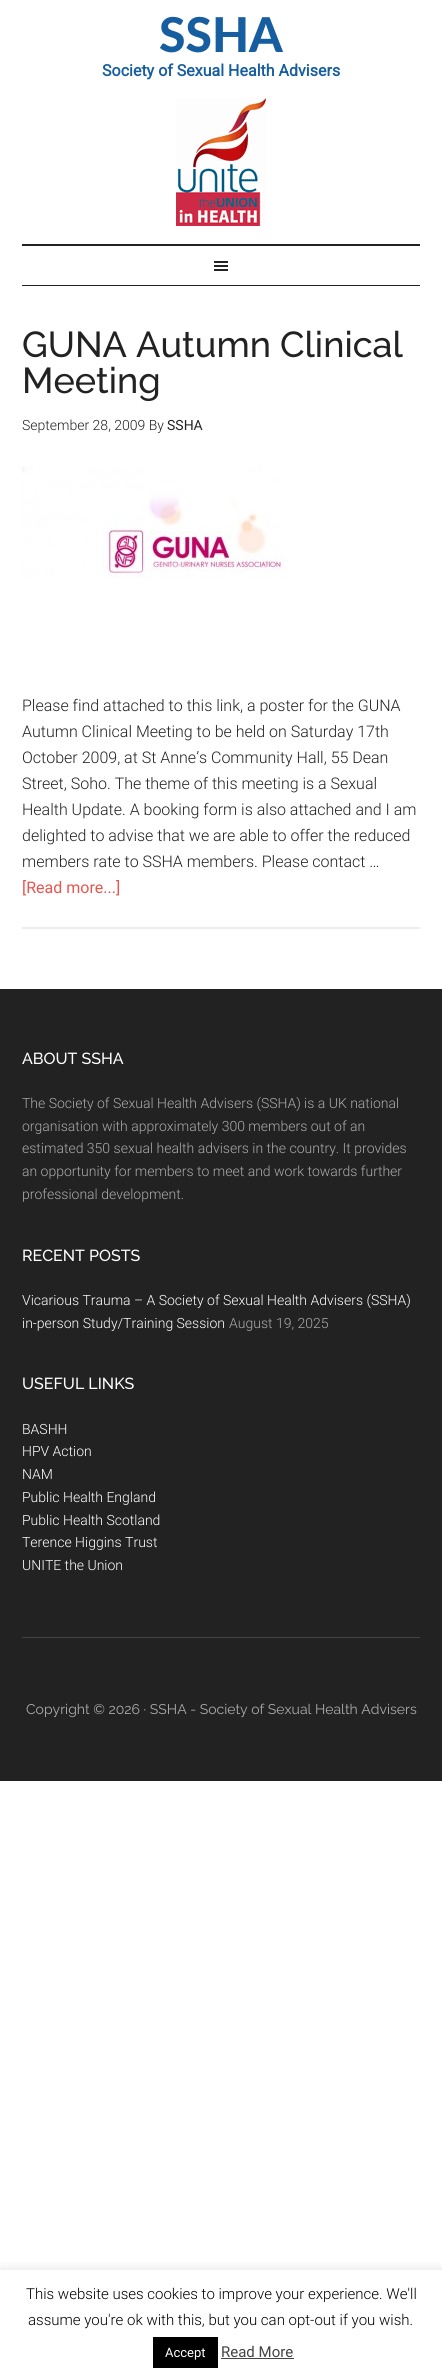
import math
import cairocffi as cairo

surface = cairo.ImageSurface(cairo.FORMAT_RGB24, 442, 2380)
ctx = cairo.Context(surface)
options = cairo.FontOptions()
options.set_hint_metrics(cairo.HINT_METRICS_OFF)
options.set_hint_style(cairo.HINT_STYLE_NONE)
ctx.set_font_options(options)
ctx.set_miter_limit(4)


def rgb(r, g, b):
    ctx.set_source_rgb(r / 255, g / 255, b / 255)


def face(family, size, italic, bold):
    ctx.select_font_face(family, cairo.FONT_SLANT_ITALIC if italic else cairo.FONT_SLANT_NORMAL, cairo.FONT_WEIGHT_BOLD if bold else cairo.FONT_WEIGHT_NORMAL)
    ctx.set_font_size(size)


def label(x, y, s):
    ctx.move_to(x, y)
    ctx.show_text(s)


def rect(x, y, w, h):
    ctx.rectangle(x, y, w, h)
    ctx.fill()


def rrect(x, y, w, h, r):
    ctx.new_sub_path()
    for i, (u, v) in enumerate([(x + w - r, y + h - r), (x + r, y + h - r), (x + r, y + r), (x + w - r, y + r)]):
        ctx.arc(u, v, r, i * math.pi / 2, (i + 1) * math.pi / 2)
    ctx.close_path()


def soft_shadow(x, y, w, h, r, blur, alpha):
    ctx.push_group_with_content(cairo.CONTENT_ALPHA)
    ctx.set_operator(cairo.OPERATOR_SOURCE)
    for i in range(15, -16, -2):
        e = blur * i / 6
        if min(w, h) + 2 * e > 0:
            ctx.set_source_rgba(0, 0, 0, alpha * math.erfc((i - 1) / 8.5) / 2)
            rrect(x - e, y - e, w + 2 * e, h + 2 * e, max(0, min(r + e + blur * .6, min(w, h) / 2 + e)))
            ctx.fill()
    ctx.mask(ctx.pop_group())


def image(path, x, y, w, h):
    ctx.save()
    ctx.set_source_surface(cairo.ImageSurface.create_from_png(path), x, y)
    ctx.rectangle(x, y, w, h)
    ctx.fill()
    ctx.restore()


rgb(255, 255, 255)
ctx.paint()
rgb(34, 34, 34)
rect(22, 244, 398, 2)
face('Lato Black', 48, 0, 0)
rgb(23, 94, 161)
label(159, 52, 'SSHA')
face('Roboto', 16, 0, 1)
label(102, 76, 'Society of Sexual Health Advisers')
image('image0.png', 176, 98, 90, 128)
rgb(34, 34, 34)
rect(22, 285, 398, 1)
image('image1.png', 214, 261, 14, 10)
rgb(238, 238, 238)
rect(22, 927, 398, 2)
face('Raleway Medium', 36, 0, 0)
rgb(34, 34, 34)
label(22, 357, 'GUNA Autumn Clinical')
label(22, 393, 'Meeting')
face('Roboto Light', 14, 0, 0)
label(22, 430, 'September 28, 2009 By')
face('Roboto', 14, 0, 0)
label(167, 430, 'SSHA')
image('image2.png', 22, 467, 263, 112)
face('Roboto Light', 16, 0, 0)
label(22, 711, 'Please find attached to this link, a poster for the GUNA')
label(22, 737, 'Autumn Clinical Meeting to be held on Saturday 17th')
label(22, 763, 'October 2009, at St Anne’s Community Hall, 55 Dean')
label(22, 789, 'Street, Soho. The theme of this meeting is a Sexual')
label(22, 815, 'Health Update. A booking form is also attached and I am')
label(22, 841, 'delighted to advise that we are able to offer the reduced')
label(22, 867, 'members rate to SSHA members. Please contact …')
face('Roboto', 16, 0, 0)
rgb(232, 85, 78)
label(22, 893, '[Read more...]')
rgb(34, 34, 34)
rect(0, 989, 442, 792)
face('Raleway Medium', 16, 0, 0)
rgb(255, 255, 255)
label(22, 1064, 'ABOUT SSHA')
face('Roboto Light', 14, 0, 0)
rgb(170, 170, 170)
label(22, 1108, 'The Society of Sexual Health Advisers (SSHA) is a UK national')
label(22, 1131, 'organisation with approximately 300 members out of an')
label(22, 1153, 'estimated 350 sexual health advisers in the country. It provides')
label(22, 1176, 'an opportunity for members to meet and work towards further')
label(22, 1199, 'professional development.')
face('Raleway Medium', 16, 0, 0)
rgb(255, 255, 255)
label(22, 1261, 'RECENT POSTS')
face('Roboto Light', 14, 0, 0)
label(22, 1305, 'Vicarious Trauma – A Society of Sexual Health Advisers (SSHA)')
label(22, 1328, 'in-person Study/Training Session')
rgb(170, 170, 170)
label(229, 1328, 'August 19, 2025')
face('Raleway Medium', 16, 0, 0)
rgb(255, 255, 255)
label(22, 1389, 'USEFUL LINKS')
face('Roboto Light', 14, 0, 0)
label(22, 1434, 'BASHH')
label(22, 1456, 'HPV Action')
label(22, 1479, 'NAM')
label(22, 1502, 'Public Health England')
label(22, 1525, 'Public Health Scotland')
label(22, 1547, 'Terence Higgins Trust')
label(22, 1570, 'UNITE the Union')
rgb(68, 68, 68)
rect(22, 1637, 398, 1)
face('Raleway', 14, 0, 0)
rgb(170, 170, 170)
label(26, 1714, 'Copyright © 2026 · SSHA - Society of Sexual Health Advisers')
ctx.save()
ctx.rectangle(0, 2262, 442, 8)
ctx.clip()
rgb(172, 171, 171)
soft_shadow(0, 2269, 442, 110, 0, 5, 0.3)
ctx.restore()
face('Roboto Light', 15, 0, 0)
rgb(0, 0, 0)
label(26, 2299, 'This website uses cookies to improve your experience. We\'ll')
label(28, 2325, 'assume you\'re ok with this, but you can opt-out if you wish.')
rect(153, 2337, 65, 31)
face('Roboto', 13, 0, 0)
rgb(255, 255, 255)
label(165, 2357, 'Accept')
face('Roboto', 15, 0, 0)
rgb(68, 68, 68)
label(221, 2357, 'Read More')
rect(221, 2358, 73, 1)
surface.write_to_png('render.png')
